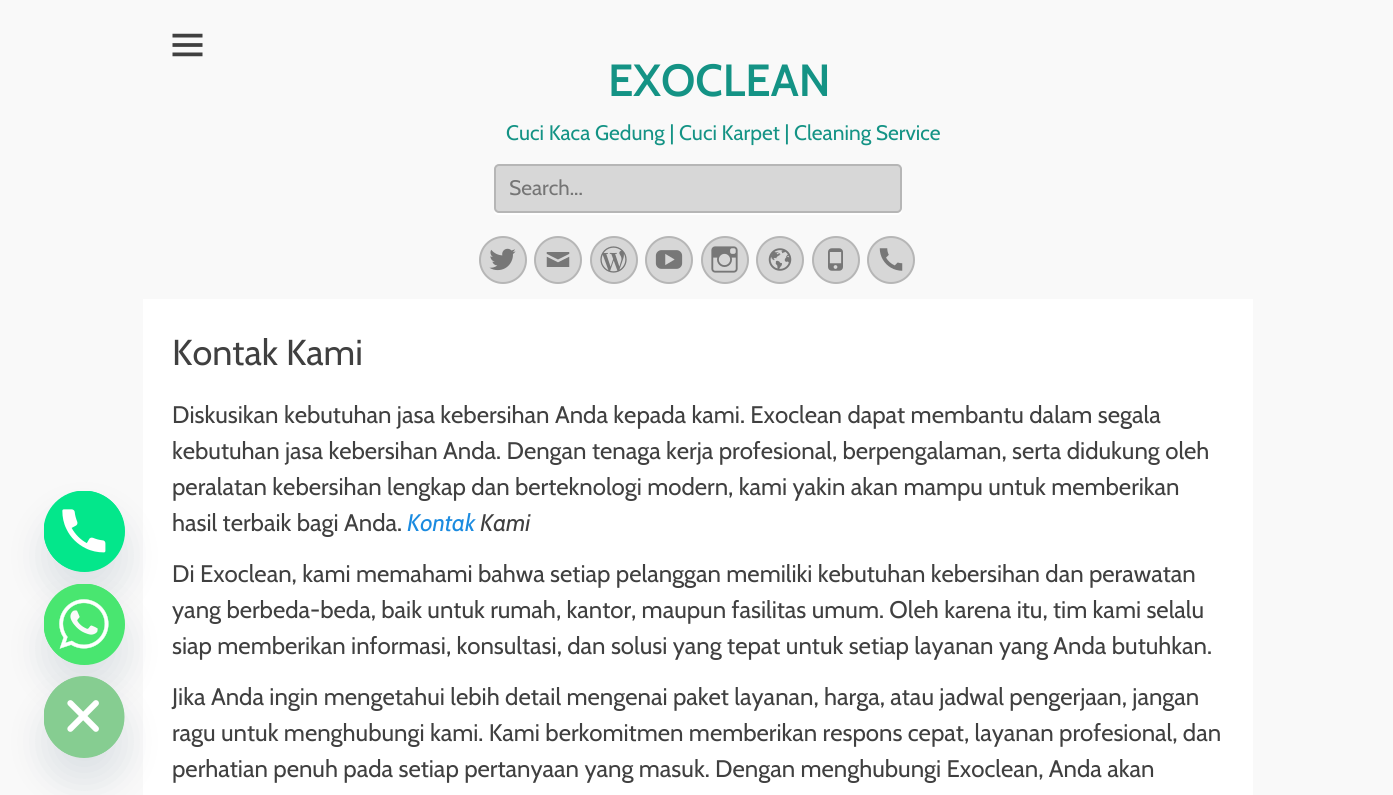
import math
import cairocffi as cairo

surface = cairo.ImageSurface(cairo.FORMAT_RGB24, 1393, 795)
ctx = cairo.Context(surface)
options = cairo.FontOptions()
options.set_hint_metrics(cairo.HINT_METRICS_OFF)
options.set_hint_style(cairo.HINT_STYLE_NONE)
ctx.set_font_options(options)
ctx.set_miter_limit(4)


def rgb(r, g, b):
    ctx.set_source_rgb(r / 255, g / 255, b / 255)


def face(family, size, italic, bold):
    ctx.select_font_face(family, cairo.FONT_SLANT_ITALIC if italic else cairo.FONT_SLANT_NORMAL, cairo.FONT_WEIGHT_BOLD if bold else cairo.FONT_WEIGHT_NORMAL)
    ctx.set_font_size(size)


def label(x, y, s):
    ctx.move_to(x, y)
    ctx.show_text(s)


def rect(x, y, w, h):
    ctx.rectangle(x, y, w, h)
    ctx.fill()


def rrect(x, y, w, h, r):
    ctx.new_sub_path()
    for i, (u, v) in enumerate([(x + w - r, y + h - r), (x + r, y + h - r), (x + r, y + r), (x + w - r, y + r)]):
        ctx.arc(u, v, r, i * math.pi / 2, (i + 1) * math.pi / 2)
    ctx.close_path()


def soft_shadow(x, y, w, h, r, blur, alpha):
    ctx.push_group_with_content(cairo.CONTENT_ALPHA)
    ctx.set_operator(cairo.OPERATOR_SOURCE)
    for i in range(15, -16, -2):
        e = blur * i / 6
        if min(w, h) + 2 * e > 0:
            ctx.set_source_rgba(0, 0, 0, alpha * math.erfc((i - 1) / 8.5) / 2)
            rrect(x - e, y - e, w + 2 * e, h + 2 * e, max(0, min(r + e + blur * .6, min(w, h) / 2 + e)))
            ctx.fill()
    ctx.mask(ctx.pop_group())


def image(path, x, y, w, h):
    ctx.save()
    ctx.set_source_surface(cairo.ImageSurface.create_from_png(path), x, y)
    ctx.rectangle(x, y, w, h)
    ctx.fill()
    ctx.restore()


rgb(249, 249, 249)
ctx.paint()
rgb(255, 255, 255)
rect(143, 299, 1110, 496)
rgb(73, 104, 126)
soft_shadow(44, 515, 81, 81, 40.5, 18, 0.16)
rgb(3, 231, 139)
ctx.arc(84.5, 531.5, 40.5, 0, 2 * math.pi)
ctx.fill()
image('image0.png', 44, 491, 81, 81)
rgb(73, 104, 126)
soft_shadow(44, 608, 81, 81, 40.5, 18, 0.16)
rgb(73, 230, 112)
ctx.arc(84.5, 624.5, 40.5, 0, 2 * math.pi)
ctx.fill()
image('image1.png', 44, 584, 81, 81)
rgb(73, 104, 126)
soft_shadow(44, 701, 81, 81, 40.5, 18, 0.16)
rgb(134, 205, 145)
ctx.new_path()
ctx.move_to(84, 758)
ctx.curve_to(62, 758, 44, 739, 44, 717)
ctx.curve_to(44, 695, 62, 676, 84, 676)
ctx.curve_to(106, 676, 124, 695, 124, 717)
ctx.curve_to(124, 739, 106, 758, 84, 758)
ctx.close_path()
ctx.fill()
image('image2.png', 44, 678, 81, 78)
image('image3.png', 172, 33, 31, 24)
face('Cabin SemiBold', 45, 0, 0)
rgb(20, 147, 133)
label(608, 96, 'EXOCLEAN')
face('Cabin', 21, 0, 0)
label(506, 140, 'Cuci Kaca Gedung | Cuci Karpet | Cleaning Service')
rgb(255, 255, 255)
ctx.new_path()
ctx.move_to(494, 211)
ctx.curve_to(494, 213, 496, 215, 499, 215)
ctx.line_to(897, 215)
ctx.curve_to(900, 215, 902, 213, 902, 210)
ctx.line_to(902, 170)
ctx.line_to(901, 168)
ctx.line_to(902, 208)
ctx.curve_to(902, 211, 899, 213, 897, 213)
ctx.line_to(498, 213)
ctx.curve_to(496, 213, 495, 212, 494, 211)
ctx.close_path()
ctx.fill()
rgb(215, 215, 215)
rrect(495, 165, 406, 47, 4)
ctx.fill_preserve()
rgb(182, 182, 182)
ctx.stroke()
rgb(117, 117, 117)
label(509, 195, 'Search...')
rgb(215, 215, 215)
ctx.new_path()
ctx.arc(503, 260, 23, 0, 2 * math.pi)
ctx.fill_preserve()
rgb(182, 182, 182)
ctx.stroke()
image('image4.png', 489, 248, 27, 23)
rgb(215, 215, 215)
ctx.arc(558, 260, 23, 0, 2 * math.pi)
ctx.fill_preserve()
rgb(182, 182, 182)
ctx.stroke()
image('image5.png', 546, 252, 24, 15)
rgb(215, 215, 215)
ctx.arc(614, 260, 23, 0, 2 * math.pi)
ctx.fill_preserve()
rgb(182, 182, 182)
ctx.stroke()
image('image6.png', 600, 246, 27, 27)
rgb(215, 215, 215)
ctx.arc(669, 260, 23, 0, 2 * math.pi)
ctx.fill_preserve()
rgb(182, 182, 182)
ctx.stroke()
image('image7.png', 655, 250, 28, 19)
rgb(215, 215, 215)
ctx.arc(725, 260, 23, 0, 2 * math.pi)
ctx.fill_preserve()
rgb(182, 182, 182)
ctx.stroke()
image('image8.png', 711, 246, 27, 27)
rgb(215, 215, 215)
ctx.arc(780, 260, 23, 0, 2 * math.pi)
ctx.fill_preserve()
rgb(182, 182, 182)
ctx.stroke()
image('image9.png', 768, 248, 24, 23)
rgb(215, 215, 215)
ctx.arc(836, 260, 23, 0, 2 * math.pi)
ctx.fill_preserve()
rgb(182, 182, 182)
ctx.stroke()
image('image10.png', 828, 248, 15, 23)
rgb(215, 215, 215)
ctx.arc(891, 260, 23, 0, 2 * math.pi)
ctx.fill_preserve()
rgb(182, 182, 182)
ctx.stroke()
image('image11.png', 879, 248, 24, 23)
face('Cabin', 36, 0, 0)
rgb(64, 64, 64)
label(172, 365, 'Kontak Kami')
face('Cabin', 24, 0, 0)
label(172, 423, 'Diskusikan kebutuhan jasa kebersihan Anda kepada kami. Exoclean dapat membantu dalam segala')
label(172, 459, 'kebutuhan jasa kebersihan Anda. Dengan tenaga kerja profesional, berpengalaman, serta didukung oleh')
label(172, 495, 'peralatan kebersihan lengkap dan berteknologi modern, kami yakin akan mampu untuk memberikan')
label(172, 531, 'hasil terbaik bagi Anda.')
face('Cabin', 24, 1, 0)
rgb(27, 139, 224)
label(407, 531, 'Kontak')
rgb(64, 64, 64)
label(480, 531, 'Kami')
face('Cabin', 24, 0, 0)
label(172, 582, 'Di Exoclean, kami memahami bahwa setiap pelanggan memiliki kebutuhan kebersihan dan perawatan')
label(172, 618, 'yang berbeda-beda, baik untuk rumah, kantor, maupun fasilitas umum. Oleh karena itu, tim kami selalu')
label(172, 654, 'siap memberikan informasi, konsultasi, dan solusi yang tepat untuk setiap layanan yang Anda butuhkan.')
label(172, 705, 'Jika Anda ingin mengetahui lebih detail mengenai paket layanan, harga, atau jadwal pengerjaan, jangan')
label(172, 741, 'ragu untuk menghubungi kami. Kami berkomitmen memberikan respons cepat, layanan profesional, dan')
label(172, 777, 'perhatian penuh pada setiap pertanyaan yang masuk. Dengan menghubungi Exoclean, Anda akan')
surface.write_to_png('render.png')
